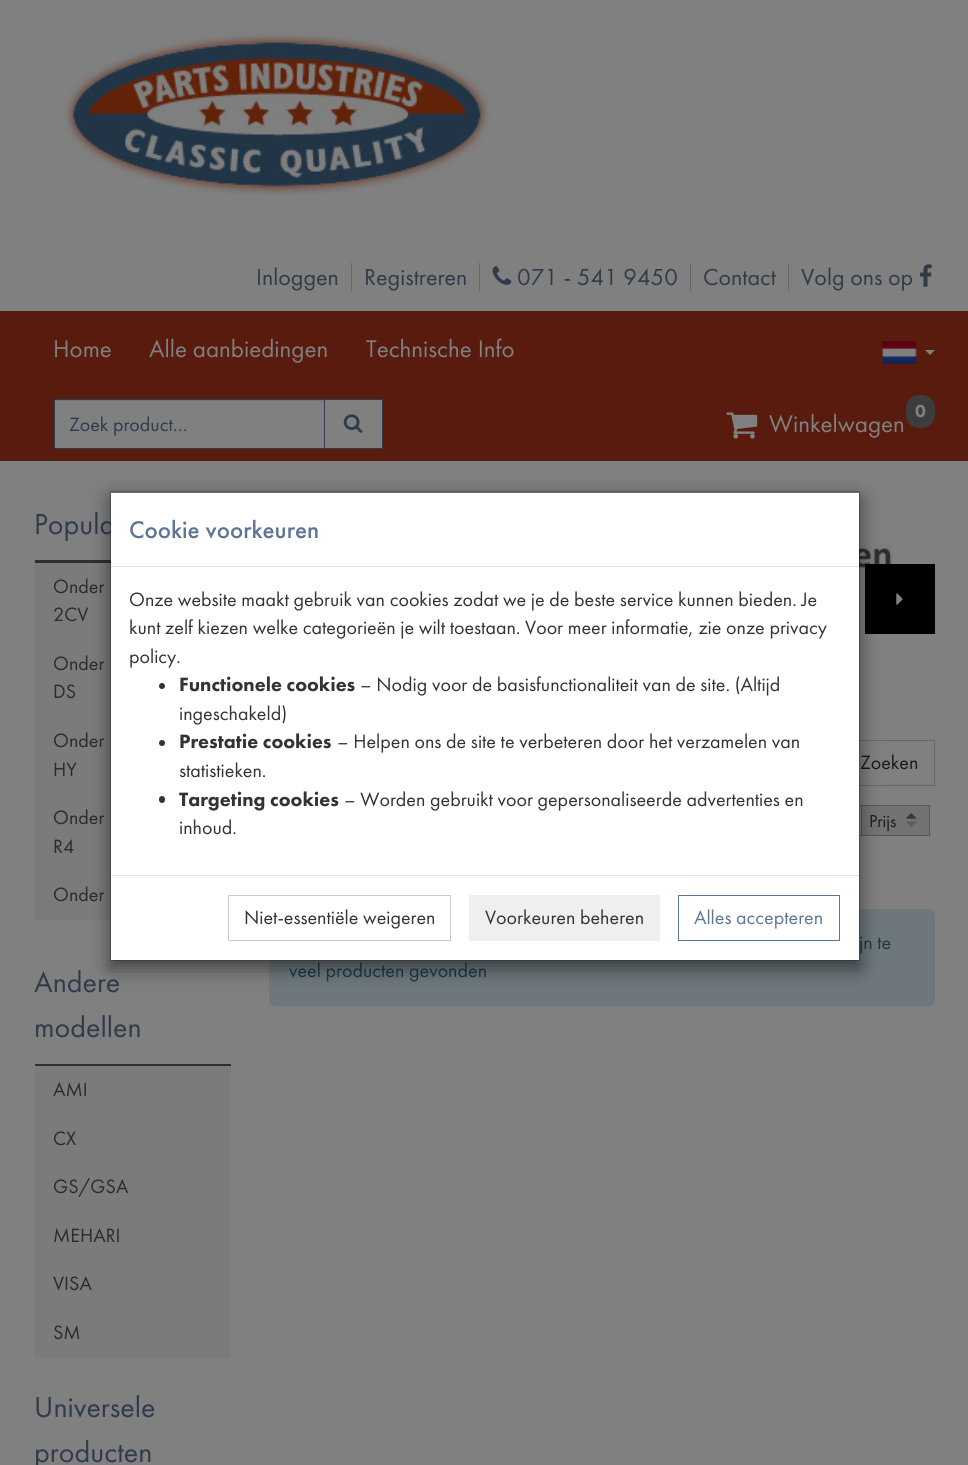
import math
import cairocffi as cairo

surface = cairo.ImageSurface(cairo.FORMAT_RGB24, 968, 1465)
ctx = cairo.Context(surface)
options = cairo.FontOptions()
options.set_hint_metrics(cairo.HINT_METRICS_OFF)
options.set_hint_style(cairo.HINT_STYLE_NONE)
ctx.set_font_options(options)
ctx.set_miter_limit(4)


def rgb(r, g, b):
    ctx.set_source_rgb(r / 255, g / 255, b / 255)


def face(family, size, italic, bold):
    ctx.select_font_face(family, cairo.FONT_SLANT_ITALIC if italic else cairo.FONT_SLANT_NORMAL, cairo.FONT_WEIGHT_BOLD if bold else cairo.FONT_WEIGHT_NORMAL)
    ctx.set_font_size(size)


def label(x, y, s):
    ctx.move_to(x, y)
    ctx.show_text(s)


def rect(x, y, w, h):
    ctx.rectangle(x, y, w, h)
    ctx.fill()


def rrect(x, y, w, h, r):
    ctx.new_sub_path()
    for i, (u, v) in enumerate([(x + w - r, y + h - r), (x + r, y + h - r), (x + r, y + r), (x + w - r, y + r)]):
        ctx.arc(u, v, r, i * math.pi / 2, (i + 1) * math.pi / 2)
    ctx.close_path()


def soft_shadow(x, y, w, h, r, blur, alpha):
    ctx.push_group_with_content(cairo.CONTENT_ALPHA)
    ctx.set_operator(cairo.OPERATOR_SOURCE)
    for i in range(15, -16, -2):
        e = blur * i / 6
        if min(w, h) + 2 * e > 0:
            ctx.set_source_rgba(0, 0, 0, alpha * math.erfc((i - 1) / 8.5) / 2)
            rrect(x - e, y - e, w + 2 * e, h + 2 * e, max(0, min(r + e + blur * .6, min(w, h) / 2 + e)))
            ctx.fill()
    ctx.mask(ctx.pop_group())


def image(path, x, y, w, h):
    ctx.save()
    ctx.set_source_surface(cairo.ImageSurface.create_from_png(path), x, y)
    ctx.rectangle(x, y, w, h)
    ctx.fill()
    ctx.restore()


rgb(128, 128, 128)
ctx.paint()
image('image0.png', 64, 34, 425, 161)
face('Futura PT', 24, 0, 0)
rgb(47, 59, 74)
label(256, 285, 'Inloggen')
rgb(102, 102, 102)
rect(351, 263, 1, 28)
rgb(47, 59, 74)
label(364, 285, 'Registreren')
rgb(102, 102, 102)
rect(479, 263, 1, 28)
image('image1.png', 492, 266, 20, 19)
rgb(47, 59, 74)
label(517, 285, '071 - 541 9450')
rgb(102, 102, 102)
rect(690, 263, 1, 28)
rgb(47, 59, 74)
label(703, 285, 'Contact')
rgb(102, 102, 102)
rect(788, 263, 1, 28)
rgb(47, 59, 74)
label(801, 285, 'Volg ons op')
image('image2.png', 920, 264, 12, 23)
rgb(89, 27, 13)
rect(0, 311, 968, 150)
face('Futura PT', 25, 0, 0)
rgb(128, 128, 128)
label(53, 357, 'Home')
label(149, 357, 'Alle aanbiedingen')
label(366, 357, 'Technische Info')
image('image3.png', 882, 341, 35, 23)
ctx.new_path()
ctx.move_to(925, 350)
ctx.line_to(935, 350)
ctx.line_to(930, 355)
ctx.close_path()
ctx.fill()
rect(55, 401, 269, 47)
rgb(118, 118, 118)
rect(55, 400, 269, 1)
ctx.rectangle(54.5, 399.5, 270, 49)
rgb(47, 59, 74)
ctx.set_line_width(1)
ctx.stroke()
face('Futura PT', 20, 0, 0)
label(69, 431, 'Zoek product…')
rgb(128, 128, 128)
ctx.rectangle(324.5, 399.5, 58, 49)
ctx.fill_preserve()
rgb(47, 59, 74)
ctx.stroke()
image('image4.png', 343, 414, 20, 19)
rgb(60, 60, 60)
rrect(906, 395, 29, 33, 13)
ctx.fill()
face('Futura PT Black', 18, 0, 0)
rgb(128, 128, 128)
label(915, 417, '0')
image('image5.png', 726, 412, 32, 27)
face('Futura PT', 25, 0, 0)
label(769, 432, 'Winkelwagen')
face('Futura PT', 30, 0, 0)
rgb(47, 59, 74)
label(34, 534, 'Popula')
rgb(47, 47, 47)
rect(35, 560, 76, 3)
rgb(123, 123, 123)
rect(35, 563, 76, 357)
face('Futura PT', 20, 0, 0)
rgb(43, 43, 43)
label(53, 593, 'Onder')
label(53, 621, '2CV')
label(53, 670, 'Onder')
label(53, 698, 'DS')
label(53, 747, 'Onder')
label(53, 776, 'HY')
label(53, 824, 'Onder')
label(53, 853, 'R4')
label(53, 901, 'Onder')
face('Futura PT', 30, 0, 0)
rgb(47, 59, 74)
label(34, 992, 'Andere')
label(34, 1037, 'modellen')
rgb(47, 47, 47)
rect(35, 1064, 196, 2)
rgb(123, 123, 123)
rect(35, 1066, 196, 292)
face('Futura PT', 20, 0, 0)
rgb(43, 43, 43)
label(53, 1096, 'AMI')
label(53, 1145, 'CX')
label(53, 1193, 'GS/GSA')
label(53, 1242, 'MEHARI')
label(53, 1290, 'VISA')
label(53, 1339, 'SM')
face('Futura PT', 30, 0, 0)
rgb(47, 59, 74)
label(34, 1417, 'Universele')
label(34, 1462, 'producten')
image('image6.png', 859, 538, 33, 123)
rgb(0, 0, 0)
rect(865, 564, 70, 70)
image('image7.png', 896, 593, 7, 12)
ctx.rectangle(820.5, 740.5, 114, 45)
rgb(102, 102, 102)
ctx.stroke()
face('Futura PT', 20, 0, 0)
rgb(26, 26, 26)
label(860, 769, 'Zoeken')
ctx.rectangle(778.5, 805.5, 84, 30)
rgb(102, 102, 102)
ctx.stroke()
rgb(115, 115, 115)
ctx.rectangle(861.5, 805.5, 68, 30)
ctx.fill_preserve()
rgb(87, 87, 87)
ctx.stroke()
face('Futura PT', 18, 0, 0)
rgb(26, 26, 26)
label(869, 827, 'Prijs')
image('image8.png', 906, 813, 11, 6)
image('image9.png', 906, 821, 11, 6)
rgb(109, 119, 124)
rrect(269, 909, 666, 97, 6)
ctx.fill()
face('Futura PT', 20, 0, 0)
rgb(25, 56, 72)
label(859, 949, 'jn te')
label(289, 977, 'veel producten gevonden')
rgb(0, 0, 0)
soft_shadow(110, 498, 750, 470, 0, 9.5, 0.5)
rgb(255, 255, 255)
rect(111, 493, 748, 467)
ctx.rectangle(110.5, 491.5, 749, 469)
ctx.set_source_rgba(0, 0, 0, 0.2)
ctx.stroke()
rgb(229, 229, 229)
rect(111, 566, 748, 1)
face('Futura PT Medium', 25, 0, 0)
rgb(94, 117, 148)
label(129, 538, 'Cookie voorkeuren')
face('Futura PT', 20, 0, 0)
rgb(51, 51, 51)
label(129, 606, 'Onze website maakt gebruik van cookies zodat we je de beste service kunnen bieden. Je')
label(129, 634, 'kunt zelf kiezen welke categorieën je wilt toestaan. Voor meer informatie, zie onze privacy')
label(129, 663, 'policy.')
ctx.new_path()
ctx.arc(162, 686, 3, 0, 2 * math.pi)
ctx.fill()
face('Futura PT Black', 20, 0, 0)
label(179, 691, 'Functionele cookies')
face('Futura PT', 20, 0, 0)
label(360, 691, '– Nodig voor de basisfunctionaliteit van de site. (Altijd')
label(179, 720, 'ingeschakeld)')
ctx.new_path()
ctx.arc(162, 743, 3, 0, 2 * math.pi)
ctx.fill()
face('Futura PT Black', 20, 0, 0)
label(179, 748, 'Prestatie cookies')
face('Futura PT', 20, 0, 0)
label(337, 748, '– Helpen ons de site te verbeteren door het verzamelen van')
label(179, 777, 'statistieken.')
rrect(159, 796, 6, 7, 3)
ctx.fill()
face('Futura PT Black', 20, 0, 0)
label(179, 806, 'Targeting cookies')
face('Futura PT', 20, 0, 0)
label(344, 806, '– Worden gebruikt voor gepersonaliseerde advertenties en')
label(179, 834, 'inhoud.')
rgb(229, 229, 229)
rect(111, 875, 748, 1)
ctx.rectangle(228.5, 895.5, 222, 45)
rgb(204, 204, 204)
ctx.stroke()
rgb(51, 51, 51)
label(244, 924, 'Niet-essentiële weigeren')
rgb(239, 239, 239)
rect(469, 895, 191, 46)
rgb(51, 51, 51)
label(485, 924, 'Voorkeuren beheren')
ctx.rectangle(678.5, 895.5, 161, 45)
rgb(94, 117, 148)
ctx.stroke()
label(694, 924, 'Alles accepteren')
surface.write_to_png('render.png')
